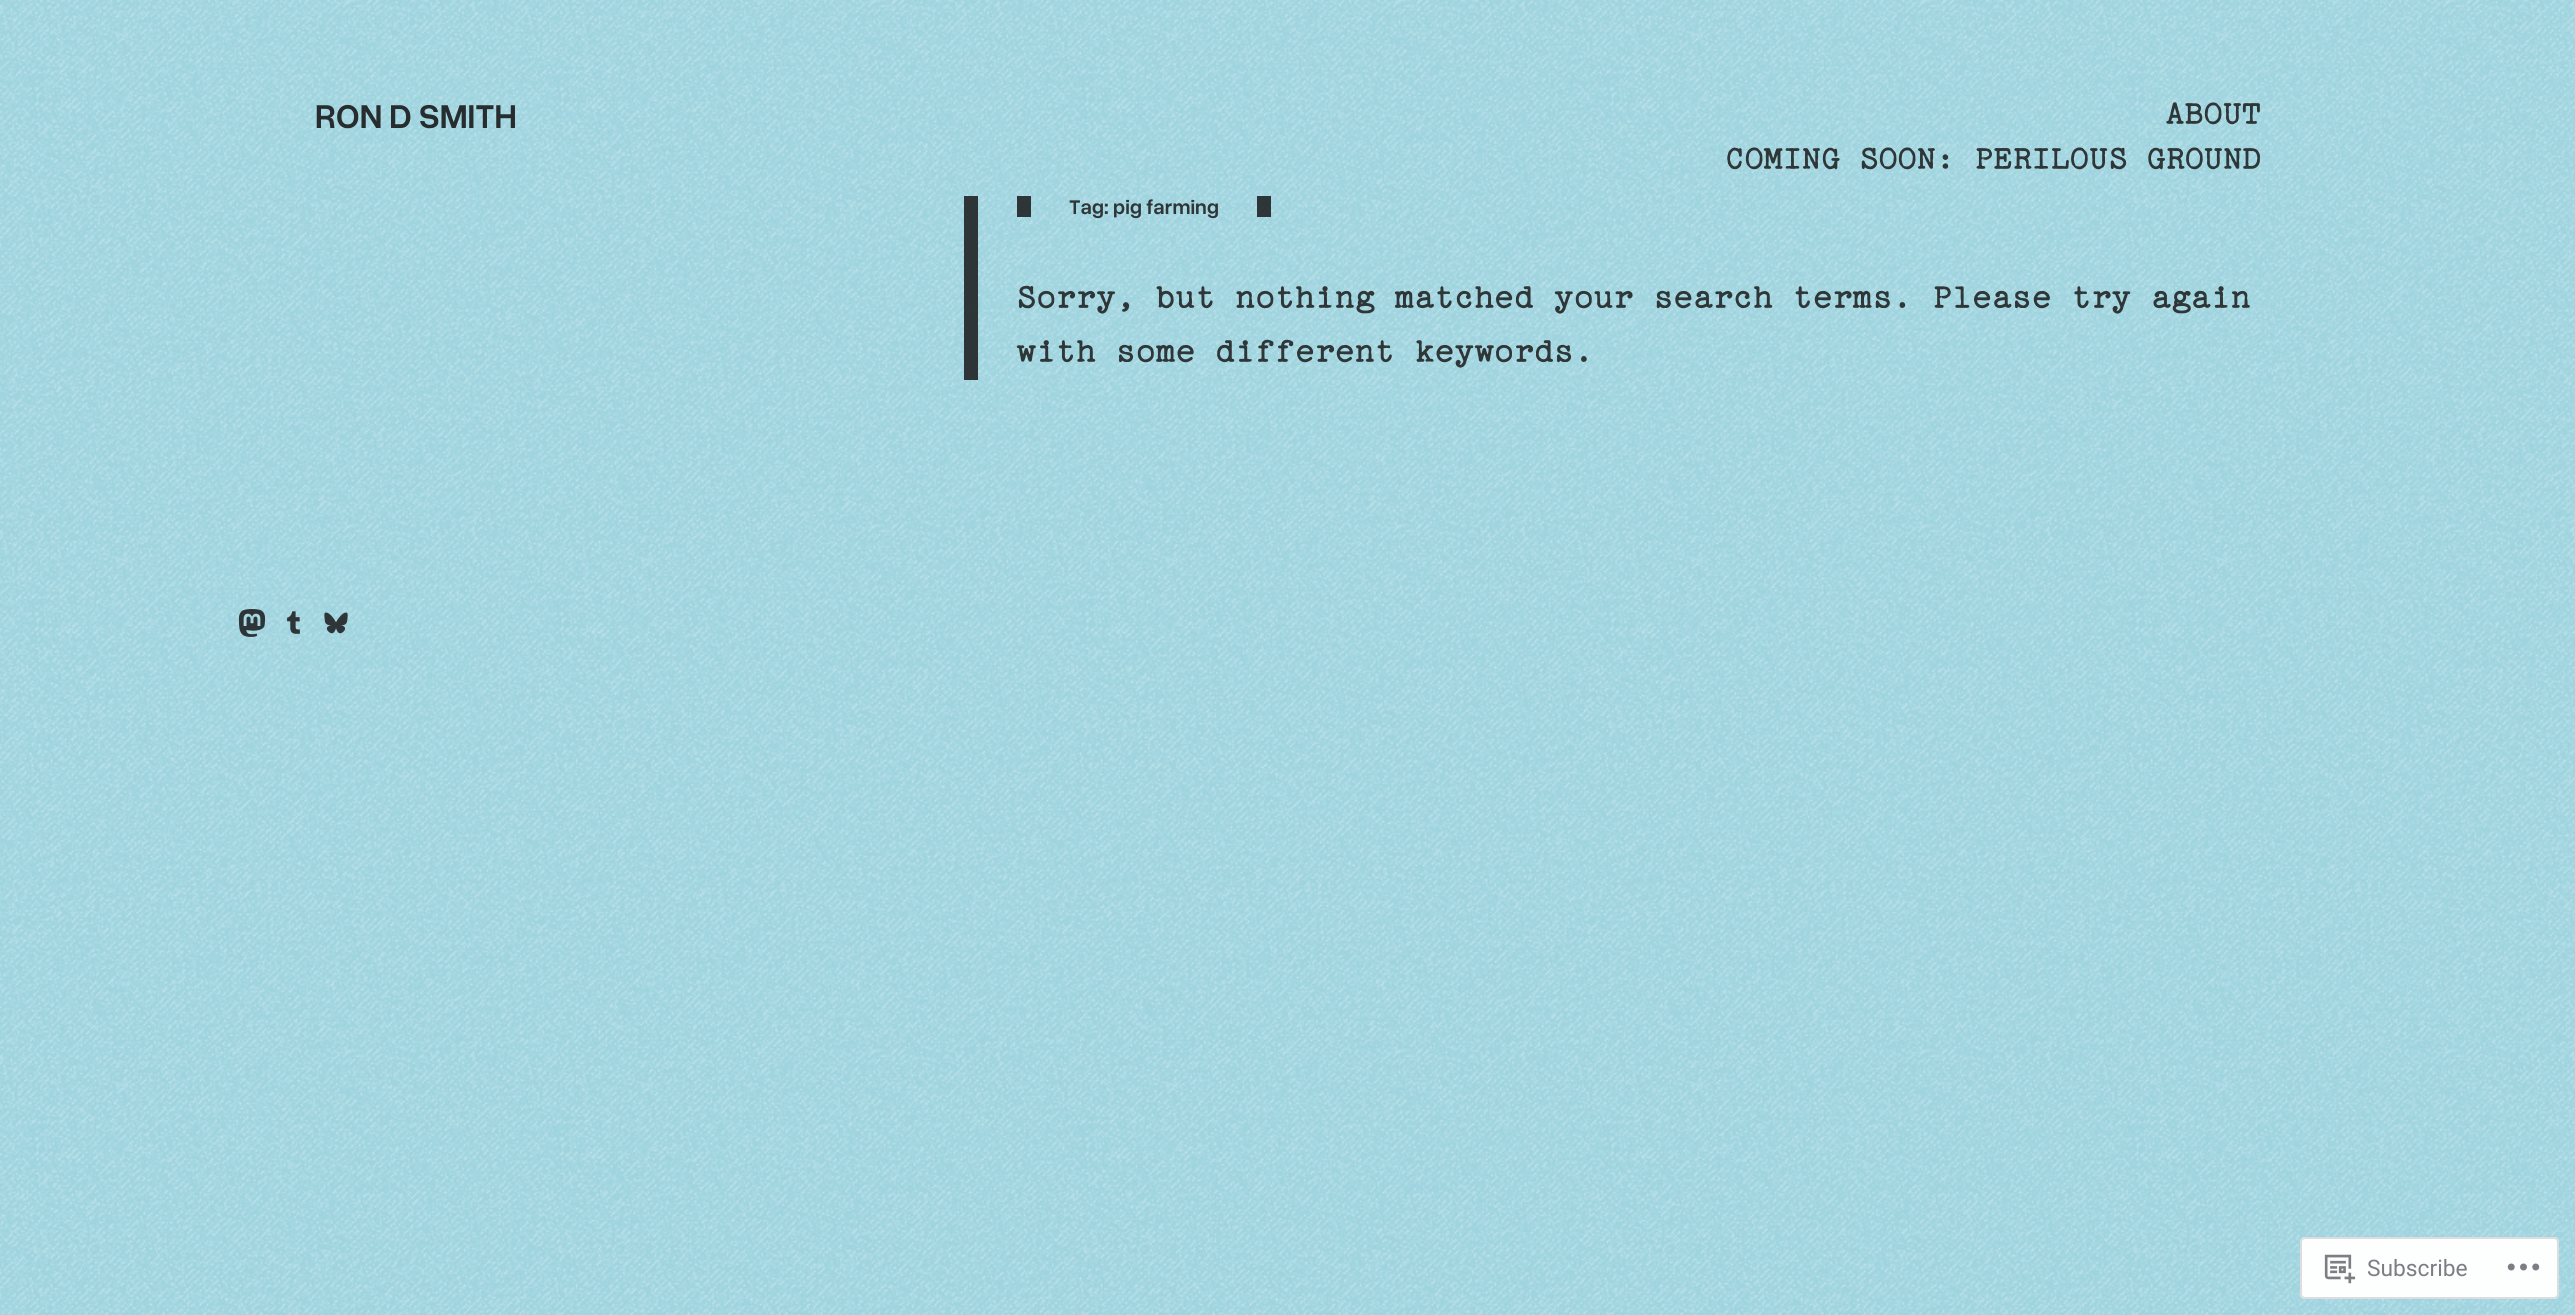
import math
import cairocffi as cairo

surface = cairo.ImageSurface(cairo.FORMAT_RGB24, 2575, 1315)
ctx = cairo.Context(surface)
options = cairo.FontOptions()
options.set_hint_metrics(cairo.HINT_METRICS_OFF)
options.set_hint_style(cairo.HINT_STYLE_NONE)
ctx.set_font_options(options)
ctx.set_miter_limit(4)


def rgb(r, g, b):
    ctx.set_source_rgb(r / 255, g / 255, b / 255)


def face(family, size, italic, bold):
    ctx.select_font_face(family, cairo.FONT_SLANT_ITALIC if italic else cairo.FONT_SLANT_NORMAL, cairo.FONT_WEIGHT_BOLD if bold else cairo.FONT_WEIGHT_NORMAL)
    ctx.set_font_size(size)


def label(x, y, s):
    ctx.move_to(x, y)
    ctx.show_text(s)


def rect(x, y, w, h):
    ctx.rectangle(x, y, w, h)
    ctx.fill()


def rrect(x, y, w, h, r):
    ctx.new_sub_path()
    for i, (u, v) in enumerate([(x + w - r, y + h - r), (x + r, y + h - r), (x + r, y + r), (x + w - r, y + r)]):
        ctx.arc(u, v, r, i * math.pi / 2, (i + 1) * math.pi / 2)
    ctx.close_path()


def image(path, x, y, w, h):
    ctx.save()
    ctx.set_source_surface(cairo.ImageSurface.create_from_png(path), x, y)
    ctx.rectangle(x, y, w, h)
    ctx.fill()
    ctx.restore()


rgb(159, 212, 223)
ctx.paint()
image('image0.png', 0, 0, 2575, 1315)
face('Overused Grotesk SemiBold', 35, 0, 0)
rgb(39, 44, 46)
label(315, 128, 'RON D SMITH')
face('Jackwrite', 35, 0, 0)
rgb(46, 54, 56)
label(2165, 123, 'ABOUT')
label(1725, 168, 'COMING SOON: PERILOUS GROUND')
ctx.set_source_rgba(0.098, 0.098, 0.102, 0.85)
rect(964, 196, 14, 184)
rect(1257, 196, 14, 21)
rect(1017, 196, 14, 21)
face('Overused Grotesk SemiBold', 21, 0, 0)
rgb(46, 54, 56)
label(1069, 214, 'Tag:')
label(1113, 214, 'pig farming')
face('Jackwrite', 36.4, 0, 0)
label(1016, 307, 'Sorry, but nothing matched your search terms. Please try again')
label(1016, 361, 'with some different keywords.')
image('image1.png', 238, 609, 28, 28)
image('image2.png', 287, 611, 13, 23)
image('image3.png', 324, 612, 24, 22)
ctx.set_source_rgba(1, 1, 1, 0.98)
rrect(2300, 1237, 259, 62, 5)
ctx.fill()
rrect(2301, 1238, 257, 60, 4)
ctx.set_source_rgba(0.863, 0.863, 0.871, 0.98)
ctx.stroke()
image('image4.png', 2324, 1254, 32, 30)
face('Roboto', 22.75, 0, 0)
rgb(123, 127, 132)
label(2367, 1276, 'Subscribe')
image('image5.png', 2507, 1263, 33, 8)
surface.write_to_png('render.png')
